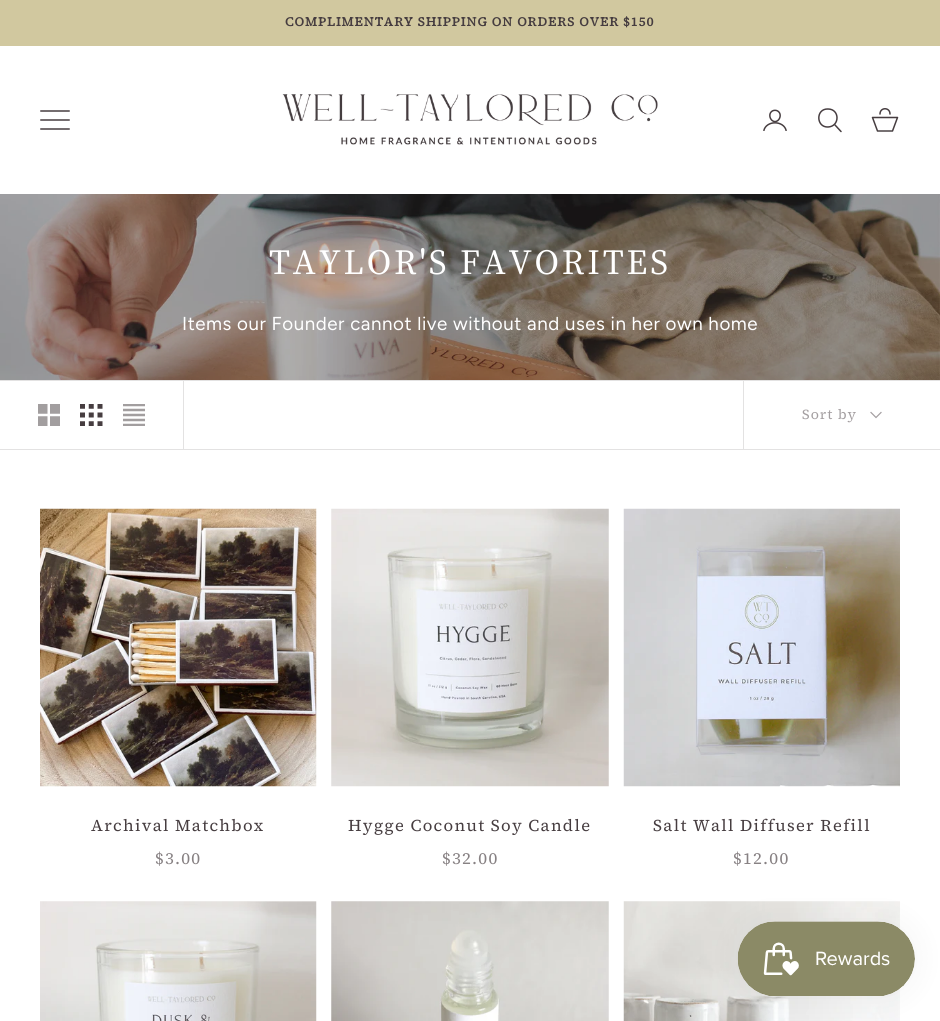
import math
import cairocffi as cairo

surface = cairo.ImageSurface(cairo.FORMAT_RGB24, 940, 1021)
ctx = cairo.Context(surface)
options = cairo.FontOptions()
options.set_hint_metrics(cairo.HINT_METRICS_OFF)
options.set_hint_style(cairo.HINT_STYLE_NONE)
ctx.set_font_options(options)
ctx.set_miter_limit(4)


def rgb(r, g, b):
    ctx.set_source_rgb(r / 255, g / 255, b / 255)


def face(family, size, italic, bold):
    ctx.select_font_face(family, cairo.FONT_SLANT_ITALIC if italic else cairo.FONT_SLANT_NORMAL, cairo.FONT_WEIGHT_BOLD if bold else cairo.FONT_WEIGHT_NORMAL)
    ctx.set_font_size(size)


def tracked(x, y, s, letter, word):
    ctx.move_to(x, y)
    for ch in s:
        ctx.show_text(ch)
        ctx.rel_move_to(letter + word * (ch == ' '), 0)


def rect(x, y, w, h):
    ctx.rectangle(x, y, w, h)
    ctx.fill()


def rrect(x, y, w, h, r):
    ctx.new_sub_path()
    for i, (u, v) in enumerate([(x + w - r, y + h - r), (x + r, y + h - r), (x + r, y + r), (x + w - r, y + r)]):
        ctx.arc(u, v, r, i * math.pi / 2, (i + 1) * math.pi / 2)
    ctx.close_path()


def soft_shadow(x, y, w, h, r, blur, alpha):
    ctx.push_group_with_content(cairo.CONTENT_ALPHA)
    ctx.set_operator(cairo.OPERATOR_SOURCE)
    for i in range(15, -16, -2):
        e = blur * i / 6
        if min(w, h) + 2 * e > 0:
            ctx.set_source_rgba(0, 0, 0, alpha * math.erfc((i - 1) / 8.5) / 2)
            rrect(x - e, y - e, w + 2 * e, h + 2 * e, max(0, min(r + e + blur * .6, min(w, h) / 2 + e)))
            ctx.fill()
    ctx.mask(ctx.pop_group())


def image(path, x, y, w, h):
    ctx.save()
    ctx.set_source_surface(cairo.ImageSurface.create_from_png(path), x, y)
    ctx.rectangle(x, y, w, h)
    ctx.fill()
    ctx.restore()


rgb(209, 200, 159)
ctx.paint()
face('Source Serif 4', 12.5, 0, 1)
rgb(70, 61, 64)
tracked(285, 26, 'COMPLIMENTARY SHIPPING ON ORDERS OVER $150', 1, 0)
rgb(255, 255, 255)
rect(0, 46, 940, 148)
ctx.new_path()
ctx.move_to(41, 129)
ctx.line_to(69, 129)
ctx.move_to(41, 120)
ctx.line_to(69, 120)
ctx.move_to(41, 111)
ctx.line_to(69, 111)
rgb(70, 61, 64)
ctx.set_line_width(1.5)
ctx.set_line_cap(cairo.LINE_CAP_SQUARE)
ctx.stroke()
image('image0.png', 282, 94, 376, 51)
image('image1.png', 763, 109, 24, 22)
ctx.new_path()
ctx.move_to(828, 109)
ctx.curve_to(815.5, 108.5, 816, 127.5, 828, 127)
ctx.curve_to(840, 126.5, 840, 109, 828, 109)
ctx.close_path()
ctx.set_line_cap(cairo.LINE_CAP_BUTT)
ctx.stroke()
ctx.new_path()
ctx.move_to(835, 125)
ctx.line_to(841, 131.5)
ctx.set_line_cap(cairo.LINE_CAP_ROUND)
ctx.stroke()
ctx.new_path()
ctx.move_to(872.5, 117.5)
ctx.line_to(897.5, 117.5)
ctx.line_to(892.5, 131)
ctx.line_to(877.5, 131)
ctx.close_path()
ctx.move_to(890, 114)
ctx.curve_to(890, 107, 880, 107, 880, 114)
ctx.set_line_join(cairo.LINE_JOIN_ROUND)
ctx.stroke()
image('image2.png', 0, 194, 940, 186)
face('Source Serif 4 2', 35.25, 0, 0)
rgb(255, 255, 255)
tracked(269, 274, 'TAYLOR\'S FAVORITES', 2.8, 0)
face('Figtree', 18.75, 0, 0)
tracked(182, 330, 'Items our Founder cannot live without and uses in her own home', 0.55, 0)
rect(0, 450, 940, 571)
rgb(227, 226, 226)
rect(0, 380, 940, 1)
rect(0, 449, 940, 1)
rgb(255, 255, 255)
rect(0, 381, 940, 68)
rgb(227, 226, 226)
rect(183, 381, 1, 68)
image('image3.png', 38, 404, 22, 22)
image('image4.png', 80, 404, 23, 22)
image('image5.png', 123, 404, 22, 22)
rect(743, 381, 1, 68)
face('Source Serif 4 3', 13.75, 0, 0)
rgb(163, 158, 160)
tracked(802, 419, 'Sort by', 1, 0)
ctx.new_path()
ctx.move_to(871, 412.5)
ctx.line_to(876, 417.5)
ctx.line_to(881, 412.5)
ctx.set_line_width(1.2)
ctx.set_line_cap(cairo.LINE_CAP_SQUARE)
ctx.set_line_join(cairo.LINE_JOIN_MITER)
ctx.stroke()
image('image6.png', 40, 508, 277, 279)
face('Source Serif 4', 16.5, 0, 0)
rgb(70, 61, 64)
tracked(91, 831, 'Archival Matchbox', 1.3, 0)
rgb(135, 129, 131)
tracked(155, 864, '$3.00', 1.3, 0)
image('image7.png', 331, 508, 278, 279)
rgb(70, 61, 64)
tracked(348, 831, 'Hygge Coconut Soy Candle', 1.3, 0)
rgb(135, 129, 131)
tracked(442, 864, '$32.00', 1.3, 0)
image('image8.png', 623, 508, 277, 279)
rgb(70, 61, 64)
tracked(653, 831, 'Salt Wall Diffuser Refill', 1.3, 0)
rgb(135, 129, 131)
tracked(733, 864, '$12.00', 1.3, 0)
image('image9.png', 40, 901, 277, 120)
image('image10.png', 331, 901, 278, 120)
image('image11.png', 623, 901, 277, 120)
rgb(0, 0, 0)
soft_shadow(738, 921, 177, 75, 37.5, 15.5, 0.05)
image('image12.png', 737, 921, 178, 75)
surface.write_to_png('render.png')
